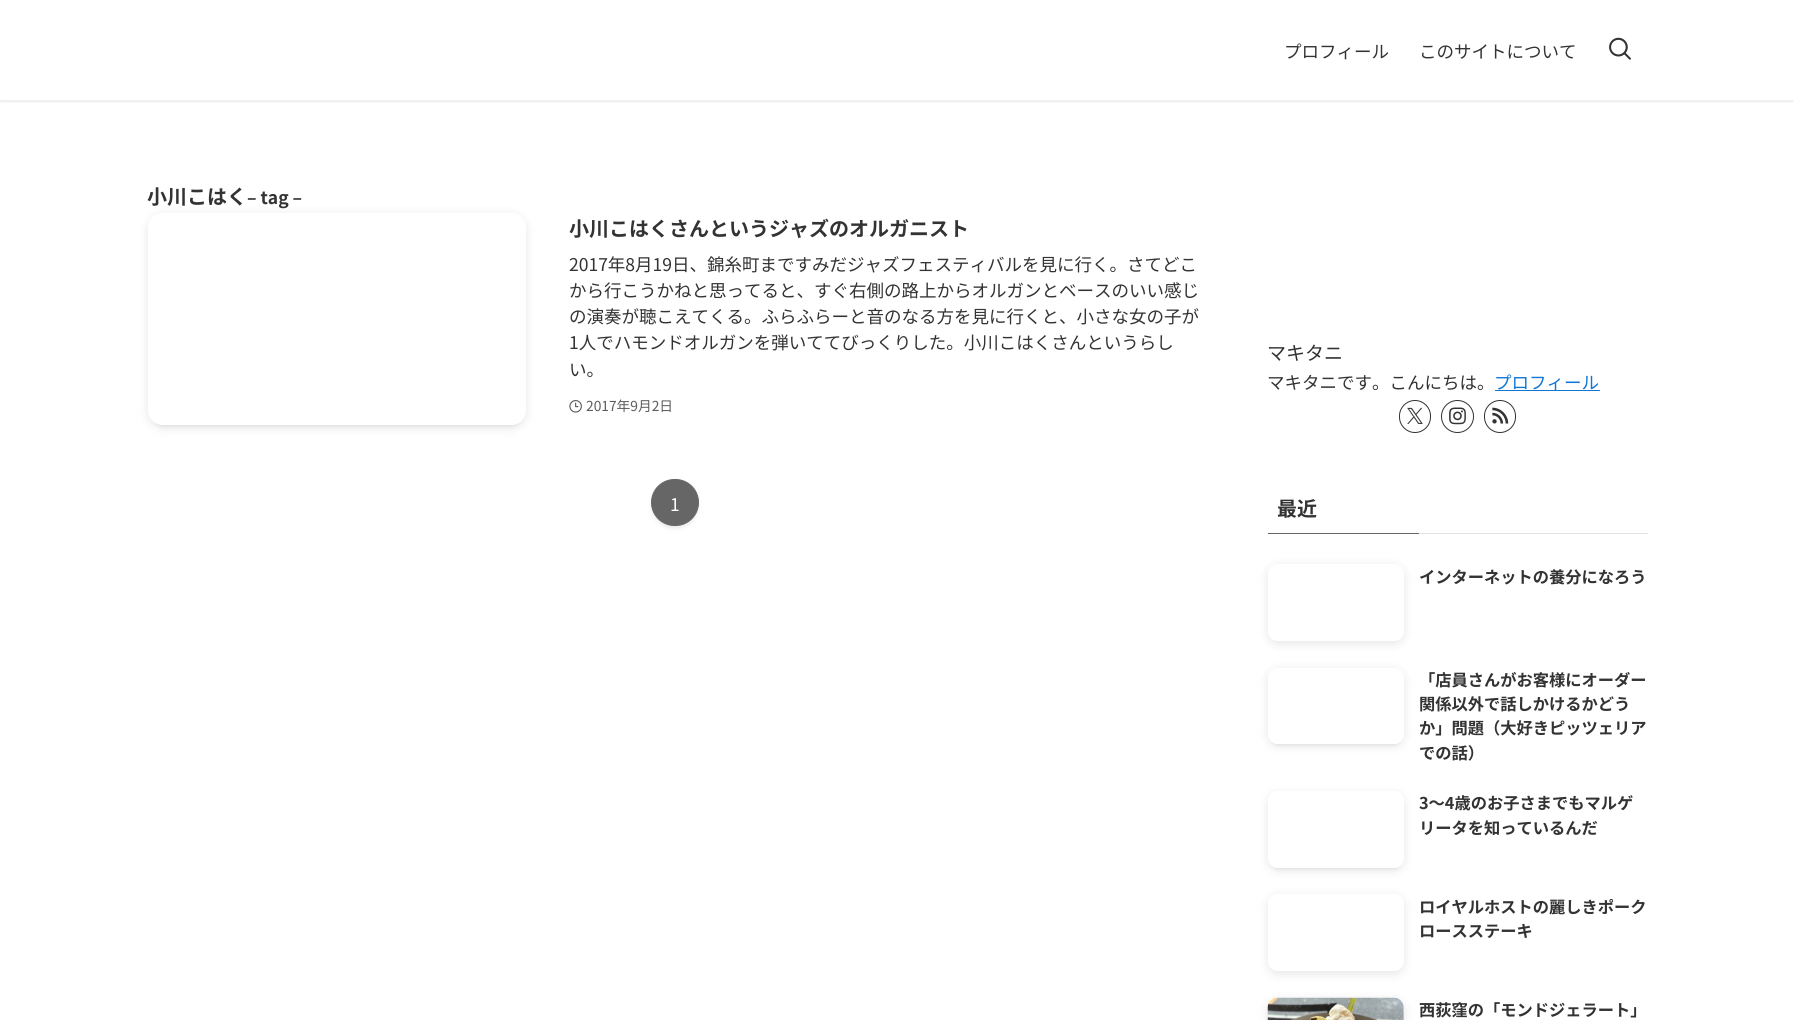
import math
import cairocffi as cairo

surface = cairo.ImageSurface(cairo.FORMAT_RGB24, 1793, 1020)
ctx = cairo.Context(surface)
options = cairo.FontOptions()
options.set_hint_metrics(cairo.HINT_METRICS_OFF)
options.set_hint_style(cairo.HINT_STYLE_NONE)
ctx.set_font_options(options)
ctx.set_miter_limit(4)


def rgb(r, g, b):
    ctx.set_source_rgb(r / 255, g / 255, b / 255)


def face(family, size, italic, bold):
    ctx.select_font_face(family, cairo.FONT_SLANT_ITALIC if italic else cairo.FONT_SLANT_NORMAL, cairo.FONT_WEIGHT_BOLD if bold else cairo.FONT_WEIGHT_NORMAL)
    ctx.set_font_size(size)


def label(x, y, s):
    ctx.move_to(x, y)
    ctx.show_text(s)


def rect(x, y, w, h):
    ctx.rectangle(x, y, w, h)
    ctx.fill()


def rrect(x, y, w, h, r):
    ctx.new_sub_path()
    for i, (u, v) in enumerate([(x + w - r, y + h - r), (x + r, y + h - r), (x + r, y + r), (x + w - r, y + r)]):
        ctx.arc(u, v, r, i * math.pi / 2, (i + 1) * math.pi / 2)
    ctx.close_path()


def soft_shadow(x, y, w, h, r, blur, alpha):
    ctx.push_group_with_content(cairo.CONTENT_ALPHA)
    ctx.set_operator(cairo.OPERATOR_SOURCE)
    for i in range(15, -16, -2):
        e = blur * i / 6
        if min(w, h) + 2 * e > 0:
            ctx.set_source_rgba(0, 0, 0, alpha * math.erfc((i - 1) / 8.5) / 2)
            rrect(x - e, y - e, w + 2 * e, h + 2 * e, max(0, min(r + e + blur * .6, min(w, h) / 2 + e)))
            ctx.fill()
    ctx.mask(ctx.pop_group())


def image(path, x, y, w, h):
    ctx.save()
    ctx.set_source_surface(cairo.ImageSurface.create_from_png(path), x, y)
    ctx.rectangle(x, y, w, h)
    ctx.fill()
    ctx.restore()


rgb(255, 255, 255)
ctx.paint()
ctx.save()
ctx.rectangle(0, 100, 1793, 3)
ctx.clip()
rgb(0, 0, 0)
soft_shadow(0, 1, 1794, 100, 0, 2.5, 0.12)
ctx.restore()
face('Noto Sans JP', 17.5, 0, 0)
rgb(51, 51, 51)
label(1284, 58, 'プロフィール')
label(1419, 58, 'このサイトについて')
image('image0.png', 1609, 37, 22, 23)
face('Noto Sans JP', 20, 0, 1)
label(147, 204, '小川こはく')
face('Noto Sans JP', 17.5, 0, 1)
label(247, 204, '– tag –')
ctx.save()
ctx.set_fill_rule(cairo.FILL_RULE_EVEN_ODD)
ctx.new_path()
ctx.move_to(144, 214)
ctx.line_to(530, 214)
ctx.line_to(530, 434)
ctx.line_to(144, 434)
ctx.close_path()
ctx.move_to(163, 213)
ctx.line_to(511, 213)
ctx.curve_to(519.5, 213, 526, 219.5, 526, 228)
ctx.line_to(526, 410)
ctx.curve_to(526, 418.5, 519.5, 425, 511, 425)
ctx.line_to(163, 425)
ctx.curve_to(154.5, 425, 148, 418.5, 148, 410)
ctx.line_to(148, 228)
ctx.curve_to(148, 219.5, 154.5, 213, 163, 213)
ctx.close_path()
ctx.clip()
rgb(0, 0, 0)
soft_shadow(153, 223, 368, 202, 10, 2.5, 0.1)
ctx.restore()
ctx.save()
ctx.set_fill_rule(cairo.FILL_RULE_EVEN_ODD)
ctx.new_path()
ctx.move_to(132, 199)
ctx.line_to(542, 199)
ctx.line_to(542, 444)
ctx.line_to(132, 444)
ctx.close_path()
ctx.move_to(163, 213)
ctx.line_to(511, 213)
ctx.curve_to(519.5, 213, 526, 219.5, 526, 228)
ctx.line_to(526, 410)
ctx.curve_to(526, 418.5, 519.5, 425, 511, 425)
ctx.line_to(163, 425)
ctx.curve_to(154.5, 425, 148, 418.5, 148, 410)
ctx.line_to(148, 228)
ctx.curve_to(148, 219.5, 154.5, 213, 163, 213)
ctx.close_path()
ctx.clip()
rgb(0, 0, 0)
soft_shadow(148, 215, 378, 213, 15, 5, 0.1)
ctx.restore()
face('Noto Sans JP', 20, 0, 1)
label(569, 236, '小川こはくさんというジャズのオルガニスト')
face('Noto Sans JP', 17.5, 0, 0)
label(569, 271, '2017年8月19日、錦糸町まですみだジャズフェスティバルを見に行く。さてどこ')
label(569, 297, 'から行こうかねと思ってると、すぐ右側の路上からオルガンとベースのいい感じ')
label(569, 323, 'の演奏が聴こえてくる。ふらふらーと音のなる方を見に行くと、小さな女の子が')
label(569, 349, '1人でハモンドオルガンを弾いててびっくりした。小川こはくさんというらし')
label(569, 376, 'い。')
image('image1.png', 569, 400, 13, 13)
face('Noto Sans JP', 13.75, 0, 0)
rgb(92, 92, 92)
label(586, 411, '2017年9月2日')
rgb(0, 0, 0)
soft_shadow(656, 489, 38, 37, 18.5, 2.5, 0.1)
soft_shadow(651, 481, 48, 48, 24, 2.5, 0.05)
rgb(102, 102, 102)
rrect(651.5, 479.5, 47, 46, 23)
ctx.fill_preserve()
ctx.set_line_width(1)
ctx.stroke()
face('Noto Sans JP', 17.5, 0, 0)
rgb(255, 255, 255)
label(670, 511, '1')
face('Noto Sans JP', 19, 0, 0)
rgb(51, 51, 51)
label(1267, 360, 'マキタニ')
face('Noto Sans JP', 17.5, 0, 0)
label(1267, 389, 'マキタニです。こんにちは。')
rgb(17, 118, 212)
rect(1495, 390, 105, 1)
label(1494, 389, 'プロフィール')
rrect(1399.5, 400.5, 31, 32, 15.5)
rgb(51, 51, 51)
ctx.stroke()
image('image2.png', 1407, 407, 16, 17)
ctx.arc(1457.5, 416.5, 16, 0, 2 * math.pi)
ctx.stroke()
image('image3.png', 1449, 407, 17, 18)
rrect(1484.5, 400.5, 31, 32, 15.5)
ctx.stroke()
image('image4.png', 1492, 407, 17, 17)
face('Noto Sans JP', 20, 0, 1)
label(1277, 516, '最近')
rgb(102, 102, 102)
rect(1268, 533, 151, 1)
rgb(227, 227, 227)
rect(1419, 533, 229, 1)
ctx.save()
ctx.set_fill_rule(cairo.FILL_RULE_EVEN_ODD)
ctx.new_path()
ctx.move_to(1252, 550)
ctx.line_to(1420, 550)
ctx.line_to(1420, 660)
ctx.line_to(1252, 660)
ctx.close_path()
ctx.move_to(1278, 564)
ctx.line_to(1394, 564)
ctx.curve_to(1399.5, 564, 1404, 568.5, 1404, 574)
ctx.line_to(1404, 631)
ctx.curve_to(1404, 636.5, 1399.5, 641, 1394, 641)
ctx.line_to(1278, 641)
ctx.curve_to(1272.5, 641, 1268, 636.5, 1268, 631)
ctx.line_to(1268, 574)
ctx.curve_to(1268, 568.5, 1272.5, 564, 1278, 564)
ctx.close_path()
ctx.clip()
rgb(0, 0, 0)
soft_shadow(1268, 566, 136, 78, 10, 5, 0.1)
ctx.restore()
face('Noto Sans JP', 16.25, 0, 1)
rgb(51, 51, 51)
label(1419, 583, 'インターネットの養分になろう')
ctx.save()
ctx.set_fill_rule(cairo.FILL_RULE_EVEN_ODD)
ctx.new_path()
ctx.move_to(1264, 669)
ctx.line_to(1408, 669)
ctx.line_to(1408, 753)
ctx.line_to(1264, 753)
ctx.close_path()
ctx.move_to(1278, 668)
ctx.line_to(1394, 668)
ctx.curve_to(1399.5, 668, 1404, 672.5, 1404, 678)
ctx.line_to(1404, 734)
ctx.curve_to(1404, 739.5, 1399.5, 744, 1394, 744)
ctx.line_to(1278, 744)
ctx.curve_to(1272.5, 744, 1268, 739.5, 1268, 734)
ctx.line_to(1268, 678)
ctx.curve_to(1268, 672.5, 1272.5, 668, 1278, 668)
ctx.close_path()
ctx.clip()
rgb(0, 0, 0)
soft_shadow(1273, 678, 126, 66, 5, 2.5, 0.1)
ctx.restore()
ctx.save()
ctx.set_fill_rule(cairo.FILL_RULE_EVEN_ODD)
ctx.new_path()
ctx.move_to(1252, 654)
ctx.line_to(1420, 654)
ctx.line_to(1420, 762)
ctx.line_to(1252, 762)
ctx.close_path()
ctx.move_to(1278, 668)
ctx.line_to(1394, 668)
ctx.curve_to(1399.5, 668, 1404, 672.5, 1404, 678)
ctx.line_to(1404, 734)
ctx.curve_to(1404, 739.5, 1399.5, 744, 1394, 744)
ctx.line_to(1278, 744)
ctx.curve_to(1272.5, 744, 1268, 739.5, 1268, 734)
ctx.line_to(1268, 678)
ctx.curve_to(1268, 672.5, 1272.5, 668, 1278, 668)
ctx.close_path()
ctx.clip()
rgb(0, 0, 0)
soft_shadow(1268, 670, 136, 76, 10, 5, 0.1)
ctx.restore()
label(1419, 686, '「店員さんがお客様にオーダー')
label(1419, 710, '関係以外で話しかけるかどう')
label(1419, 734, 'か」問題（大好きピッツェリア')
label(1419, 759, 'での話）')
ctx.save()
ctx.set_fill_rule(cairo.FILL_RULE_EVEN_ODD)
ctx.new_path()
ctx.move_to(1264, 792)
ctx.line_to(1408, 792)
ctx.line_to(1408, 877)
ctx.line_to(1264, 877)
ctx.close_path()
ctx.move_to(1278, 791)
ctx.line_to(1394, 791)
ctx.curve_to(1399.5, 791, 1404, 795.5, 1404, 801)
ctx.line_to(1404, 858)
ctx.curve_to(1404, 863.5, 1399.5, 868, 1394, 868)
ctx.line_to(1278, 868)
ctx.curve_to(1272.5, 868, 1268, 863.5, 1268, 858)
ctx.line_to(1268, 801)
ctx.curve_to(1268, 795.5, 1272.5, 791, 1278, 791)
ctx.close_path()
ctx.clip()
rgb(0, 0, 0)
soft_shadow(1273, 801, 126, 67, 5, 2.5, 0.1)
ctx.restore()
ctx.save()
ctx.set_fill_rule(cairo.FILL_RULE_EVEN_ODD)
ctx.new_path()
ctx.move_to(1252, 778)
ctx.line_to(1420, 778)
ctx.line_to(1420, 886)
ctx.line_to(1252, 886)
ctx.close_path()
ctx.move_to(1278, 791)
ctx.line_to(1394, 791)
ctx.curve_to(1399.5, 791, 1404, 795.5, 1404, 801)
ctx.line_to(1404, 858)
ctx.curve_to(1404, 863.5, 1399.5, 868, 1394, 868)
ctx.line_to(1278, 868)
ctx.curve_to(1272.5, 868, 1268, 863.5, 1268, 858)
ctx.line_to(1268, 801)
ctx.curve_to(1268, 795.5, 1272.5, 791, 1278, 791)
ctx.close_path()
ctx.clip()
rgb(0, 0, 0)
soft_shadow(1268, 794, 136, 76, 10, 5, 0.1)
ctx.restore()
label(1419, 809, '3～4歳のお子さまでもマルゲ')
label(1419, 834, 'リータを知っているんだ')
ctx.save()
ctx.set_fill_rule(cairo.FILL_RULE_EVEN_ODD)
ctx.new_path()
ctx.move_to(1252, 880)
ctx.line_to(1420, 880)
ctx.line_to(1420, 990)
ctx.line_to(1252, 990)
ctx.close_path()
ctx.move_to(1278, 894)
ctx.line_to(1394, 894)
ctx.curve_to(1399.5, 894, 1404, 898.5, 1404, 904)
ctx.line_to(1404, 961)
ctx.curve_to(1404, 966.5, 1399.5, 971, 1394, 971)
ctx.line_to(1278, 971)
ctx.curve_to(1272.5, 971, 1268, 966.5, 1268, 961)
ctx.line_to(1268, 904)
ctx.curve_to(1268, 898.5, 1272.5, 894, 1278, 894)
ctx.close_path()
ctx.clip()
rgb(0, 0, 0)
soft_shadow(1268, 896, 136, 78, 10, 5, 0.1)
ctx.restore()
label(1419, 913, 'ロイヤルホストの麗しきポーク')
label(1419, 937, 'ロースステーキ')
rgb(0, 0, 0)
soft_shadow(1268, 1000, 136, 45, 10, 5, 0.1)
image('image5.png', 1267, 997, 137, 23)
rgb(51, 51, 51)
label(1419, 1016, '西荻窪の「モンドジェラート」')
surface.write_to_png('render.png')
